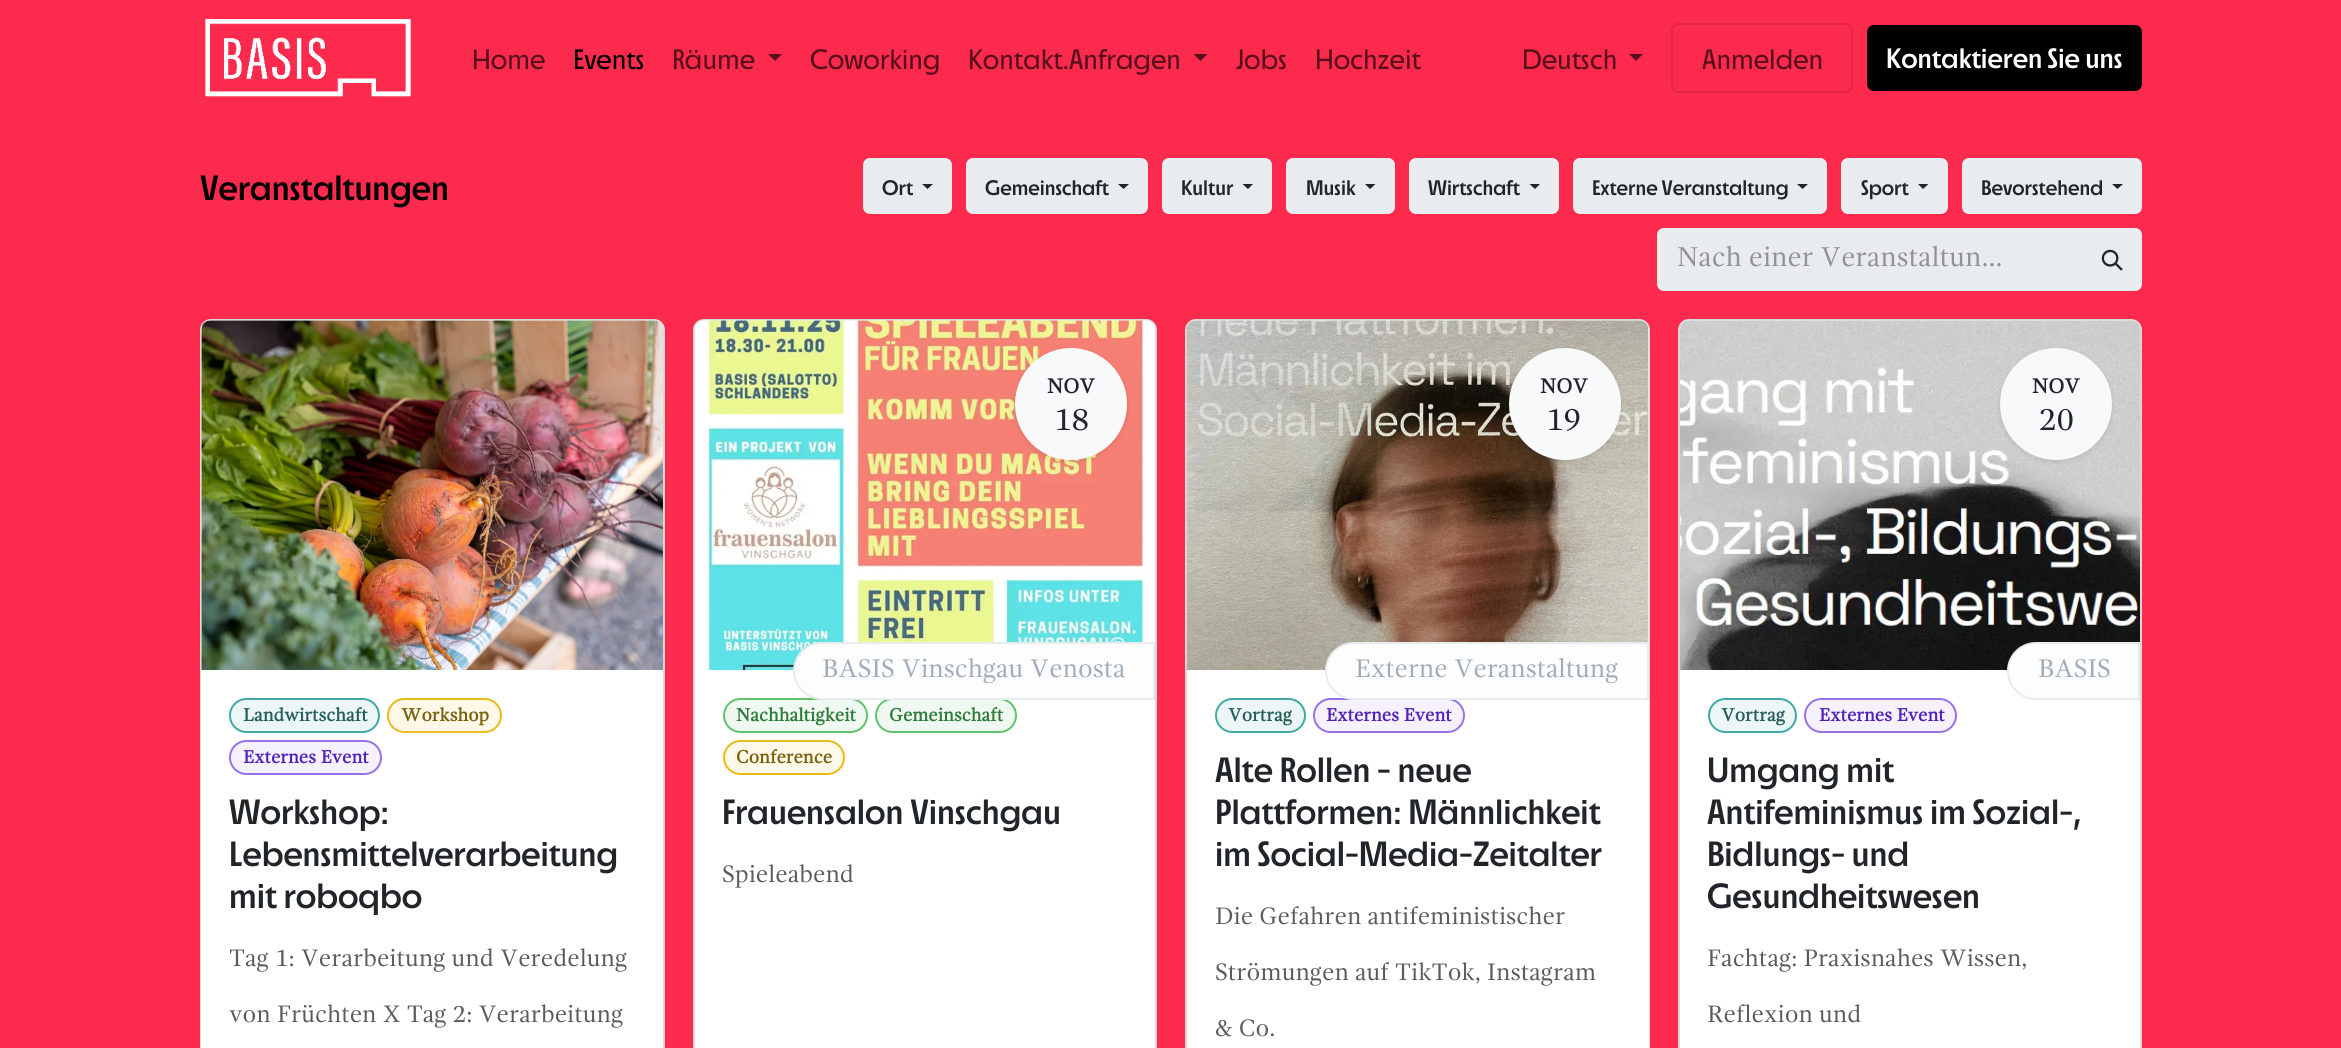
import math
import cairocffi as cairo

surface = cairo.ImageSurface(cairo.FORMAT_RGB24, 2341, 1048)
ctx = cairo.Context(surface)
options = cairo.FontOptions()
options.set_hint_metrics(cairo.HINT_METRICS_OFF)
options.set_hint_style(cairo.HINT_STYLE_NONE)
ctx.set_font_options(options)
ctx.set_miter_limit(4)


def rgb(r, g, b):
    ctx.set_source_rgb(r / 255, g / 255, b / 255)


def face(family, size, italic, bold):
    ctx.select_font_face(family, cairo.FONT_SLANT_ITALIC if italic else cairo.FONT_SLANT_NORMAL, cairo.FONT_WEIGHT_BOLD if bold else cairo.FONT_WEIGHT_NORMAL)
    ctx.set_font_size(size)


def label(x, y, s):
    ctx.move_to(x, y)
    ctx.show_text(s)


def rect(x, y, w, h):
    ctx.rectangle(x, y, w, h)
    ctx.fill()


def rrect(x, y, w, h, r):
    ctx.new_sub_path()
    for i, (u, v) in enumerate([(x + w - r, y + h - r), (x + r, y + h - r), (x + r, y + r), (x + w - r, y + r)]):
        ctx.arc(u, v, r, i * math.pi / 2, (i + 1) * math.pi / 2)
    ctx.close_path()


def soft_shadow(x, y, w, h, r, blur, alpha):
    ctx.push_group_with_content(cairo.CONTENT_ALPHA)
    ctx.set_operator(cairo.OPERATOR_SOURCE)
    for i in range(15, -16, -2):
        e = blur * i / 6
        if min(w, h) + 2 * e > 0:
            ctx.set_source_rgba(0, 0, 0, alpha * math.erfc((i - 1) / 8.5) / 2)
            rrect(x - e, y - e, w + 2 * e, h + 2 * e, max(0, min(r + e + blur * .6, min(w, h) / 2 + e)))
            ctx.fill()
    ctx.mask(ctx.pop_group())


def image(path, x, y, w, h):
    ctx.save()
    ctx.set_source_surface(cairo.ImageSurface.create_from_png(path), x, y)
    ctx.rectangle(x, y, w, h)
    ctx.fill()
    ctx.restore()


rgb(252, 42, 77)
ctx.paint()
image('image0.png', 205, 19, 206, 78)
face('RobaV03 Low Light', 28, 0, 0)
rgb(88, 15, 27)
label(472, 69, 'Home')
rgb(0, 0, 0)
label(573, 69, 'Events')
rgb(88, 15, 27)
label(672, 69, 'Räume')
ctx.new_path()
ctx.move_to(768, 54)
ctx.line_to(782, 54)
ctx.line_to(775, 61)
ctx.close_path()
ctx.fill()
label(810, 69, 'Coworking')
label(968, 69, 'Kontakt.Anfragen')
ctx.new_path()
ctx.move_to(1193.5, 54)
ctx.line_to(1207.5, 54)
ctx.line_to(1200.5, 61)
ctx.close_path()
ctx.fill()
label(1236, 69, 'Jobs')
label(1315, 69, 'Hochzeit')
label(1522, 69, 'Deutsch')
ctx.new_path()
ctx.move_to(1629, 54)
ctx.line_to(1643, 54)
ctx.line_to(1636, 61)
ctx.close_path()
ctx.fill()
rrect(1672, 24, 180, 68, 6)
rgb(227, 38, 69)
ctx.stroke()
rgb(88, 15, 27)
label(1702, 69, 'Anmelden')
rgb(0, 0, 0)
rrect(1868, 26, 273, 64, 6)
ctx.fill_preserve()
ctx.stroke()
face('RobaV03 Low Medium', 28, 0, 0)
rgb(255, 255, 255)
label(1886, 68, 'Kontaktieren Sie uns')
face('RobaV03 Low Medium', 35, 0, 0)
rgb(0, 0, 0)
label(200, 200, 'Veranstaltungen')
rgb(233, 236, 239)
rrect(864, 159, 87, 54, 6)
ctx.fill_preserve()
ctx.stroke()
face('RobaV03 Low Medium', 21, 0, 0)
rgb(33, 37, 41)
label(882, 195, 'Ort')
ctx.new_path()
ctx.move_to(922, 184)
ctx.line_to(933, 184)
ctx.line_to(927.5, 189)
ctx.close_path()
ctx.fill()
rgb(233, 236, 239)
rrect(967, 159, 180, 54, 6)
ctx.fill_preserve()
ctx.stroke()
rgb(33, 37, 41)
label(985, 195, 'Gemeinschaft')
ctx.new_path()
ctx.move_to(1118, 184)
ctx.line_to(1129, 184)
ctx.line_to(1123.5, 189)
ctx.close_path()
ctx.fill()
rgb(233, 236, 239)
rrect(1163, 159, 108, 54, 6)
ctx.fill_preserve()
ctx.stroke()
rgb(33, 37, 41)
label(1181, 195, 'Kultur')
ctx.new_path()
ctx.move_to(1242.5, 184)
ctx.line_to(1253, 184)
ctx.line_to(1248, 189)
ctx.close_path()
ctx.fill()
rgb(233, 236, 239)
rrect(1287, 159, 107, 54, 6)
ctx.fill_preserve()
ctx.stroke()
rgb(33, 37, 41)
label(1306, 195, 'Musik')
ctx.new_path()
ctx.move_to(1365, 184)
ctx.line_to(1375.5, 184)
ctx.line_to(1370, 189)
ctx.close_path()
ctx.fill()
rgb(233, 236, 239)
rrect(1410, 159, 148, 54, 6)
ctx.fill_preserve()
ctx.stroke()
rgb(33, 37, 41)
label(1428, 195, 'Wirtschaft')
ctx.new_path()
ctx.move_to(1529.5, 184)
ctx.line_to(1540, 184)
ctx.line_to(1535, 189)
ctx.close_path()
ctx.fill()
rgb(233, 236, 239)
rrect(1574, 159, 252, 54, 6)
ctx.fill_preserve()
ctx.stroke()
rgb(33, 37, 41)
label(1592, 195, 'Externe Veranstaltung')
ctx.new_path()
ctx.move_to(1797, 184)
ctx.line_to(1808, 184)
ctx.line_to(1802.5, 189)
ctx.close_path()
ctx.fill()
rgb(233, 236, 239)
rrect(1842, 159, 105, 54, 6)
ctx.fill_preserve()
ctx.stroke()
rgb(33, 37, 41)
label(1861, 195, 'Sport')
ctx.new_path()
ctx.move_to(1918, 184)
ctx.line_to(1928.5, 184)
ctx.line_to(1923, 189)
ctx.close_path()
ctx.fill()
rgb(233, 236, 239)
rrect(1963, 159, 178, 54, 6)
ctx.fill_preserve()
ctx.stroke()
rgb(33, 37, 41)
label(1981, 195, 'Bevorstehend')
ctx.new_path()
ctx.move_to(2112, 184)
ctx.line_to(2123, 184)
ctx.line_to(2117.5, 189)
ctx.close_path()
ctx.fill()
rgb(233, 236, 239)
ctx.new_path()
ctx.move_to(1664, 228)
ctx.line_to(2084, 228)
ctx.line_to(2084, 291)
ctx.line_to(1664, 291)
ctx.curve_to(1660, 291, 1657, 288, 1657, 284)
ctx.line_to(1657, 235)
ctx.curve_to(1657, 231, 1660, 228, 1664, 228)
ctx.close_path()
ctx.fill()
face('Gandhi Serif', 28, 0, 0)
rgb(144, 146, 148)
label(1677, 266, 'Nach einer Veranstaltun…')
rgb(233, 236, 239)
ctx.new_path()
ctx.move_to(2084, 229)
ctx.line_to(2135, 229)
ctx.curve_to(2138.5, 229, 2141, 231.5, 2141, 235)
ctx.line_to(2141, 284)
ctx.curve_to(2141, 287.5, 2138.5, 290, 2135, 290)
ctx.line_to(2084, 290)
ctx.close_path()
ctx.fill_preserve()
ctx.stroke()
image('image1.png', 2101, 249, 22, 22)
rgb(255, 255, 255)
rrect(200, 319, 465, 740, 11)
ctx.fill()
rrect(201, 320, 463, 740, 10)
ctx.set_source_rgba(0, 0, 0, 0.15)
ctx.stroke()
rgb(233, 236, 239)
ctx.new_path()
ctx.move_to(210, 320)
ctx.line_to(654, 320)
ctx.curve_to(659, 320, 663, 324, 663, 329)
ctx.line_to(663, 670)
ctx.line_to(201, 670)
ctx.line_to(201, 329)
ctx.curve_to(201, 324, 205, 320, 210, 320)
ctx.close_path()
ctx.fill()
image('image2.png', 201, 320, 462, 351)
ctx.set_source_rgba(1, 1, 1, 0.9)
rect(201, 670, 462, 378)
rgb(236, 246, 246)
rrect(230, 699, 149, 33, 16.5)
ctx.fill_preserve()
rgb(65, 169, 162)
ctx.stroke()
face('Gandhi Serif', 18.5, 0, 1)
rgb(37, 95, 91)
label(243, 721, 'Landwirtschaft')
rgb(253, 248, 232)
rrect(388, 699, 113, 33, 16.5)
ctx.fill_preserve()
rgb(232, 187, 29)
ctx.stroke()
rgb(121, 97, 12)
label(401, 721, 'Workshop')
rgb(245, 241, 253)
rrect(230, 741, 151, 33, 16.5)
ctx.fill_preserve()
rgb(152, 114, 230)
ctx.stroke()
rgb(82, 33, 184)
label(243, 763, 'Externes Event')
face('RobaV03 Low Medium', 35, 0, 0)
rgb(33, 37, 41)
label(229, 824, 'Workshop:')
label(229, 866, 'Lebensmittelverarbeitung')
label(229, 908, 'mit roboqbo')
face('Gandhi Serif', 24.5, 0, 0)
rgb(89, 92, 95)
label(229, 966, 'Tag 1: Verarbeitung und Veredelung')
label(229, 1022, 'von Früchten X Tag 2: Verarbeitung')
rgb(255, 255, 255)
rrect(693, 319, 464, 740, 11)
ctx.fill()
rrect(694, 320, 462, 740, 10)
ctx.set_source_rgba(0, 0, 0, 0.15)
ctx.stroke()
rgb(233, 236, 239)
ctx.new_path()
ctx.move_to(704, 320)
ctx.line_to(1146, 320)
ctx.curve_to(1151, 320, 1155, 324, 1155, 329)
ctx.line_to(1155, 670)
ctx.line_to(695, 670)
ctx.line_to(695, 329)
ctx.curve_to(695, 324, 699, 320, 704, 320)
ctx.close_path()
ctx.fill()
image('image3.png', 695, 320, 460, 351)
rgb(0, 0, 0)
soft_shadow(1015, 350, 112, 112, 56, 2.5, 0.1)
rgb(248, 249, 250)
ctx.arc(1071, 404, 56, 0, 2 * math.pi)
ctx.fill()
face('Gandhi Serif', 21, 0, 1)
rgb(33, 37, 41)
label(1047, 393, 'NOV')
face('Gandhi Serif', 32, 0, 0)
label(1054, 430, '18')
ctx.set_source_rgba(1, 1, 1, 0.9)
rect(709, 670, 434, 1)
rgb(239, 249, 241)
rrect(724, 699, 143, 33, 16.5)
ctx.fill_preserve()
rgb(97, 195, 110)
ctx.stroke()
rgb(239, 249, 241)
rrect(876, 699, 140, 33, 16.5)
ctx.fill_preserve()
rgb(97, 195, 110)
ctx.stroke()
rgb(253, 253, 253)
ctx.new_path()
ctx.move_to(822, 643)
ctx.line_to(1154, 643)
ctx.line_to(1154, 699)
ctx.line_to(822, 699)
ctx.curve_to(806.5, 699, 794, 686.5, 794, 671)
ctx.curve_to(794, 655.5, 806.5, 643, 822, 643)
ctx.close_path()
ctx.fill_preserve()
rgb(233, 236, 239)
ctx.stroke()
face('Gandhi Serif', 26.25, 0, 0)
rgb(159, 172, 185)
label(822, 677, 'BASIS Vinschgau Venosta')
face('Gandhi Serif', 18.5, 0, 1)
rgb(47, 123, 57)
label(736, 721, 'Nachhaltigkeit')
label(889, 721, 'Gemeinschaft')
rgb(253, 248, 232)
rrect(724, 741, 120, 33, 16.5)
ctx.fill_preserve()
rgb(232, 187, 29)
ctx.stroke()
rgb(121, 97, 12)
label(736, 763, 'Conference')
face('RobaV03 Low Medium', 35, 0, 0)
rgb(33, 37, 41)
label(722, 824, 'Frauensalon Vinschgau')
face('Gandhi Serif', 24.5, 0, 0)
rgb(89, 92, 95)
label(722, 882, 'Spieleabend')
rgb(255, 255, 255)
rrect(1185, 319, 465, 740, 11)
ctx.fill()
rrect(1186, 320, 463, 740, 10)
ctx.set_source_rgba(0, 0, 0, 0.15)
ctx.stroke()
rgb(233, 236, 239)
ctx.new_path()
ctx.move_to(1196, 320)
ctx.line_to(1640, 320)
ctx.curve_to(1645, 320, 1649, 324, 1649, 329)
ctx.line_to(1649, 670)
ctx.line_to(1187, 670)
ctx.line_to(1187, 329)
ctx.curve_to(1187, 324, 1191, 320, 1196, 320)
ctx.close_path()
ctx.fill()
image('image4.png', 1186, 320, 463, 351)
rgb(0, 0, 0)
soft_shadow(1509, 350, 112, 112, 56, 2.5, 0.1)
rgb(248, 249, 250)
ctx.arc(1565, 404, 56, 0, 2 * math.pi)
ctx.fill()
face('Gandhi Serif', 21, 0, 1)
rgb(33, 37, 41)
label(1540, 393, 'NOV')
face('Gandhi Serif', 32, 0, 0)
label(1546, 430, '19')
ctx.set_source_rgba(1, 1, 1, 0.9)
rect(1187, 670, 462, 378)
rgb(245, 241, 253)
rrect(1314, 699, 150, 33, 16.5)
ctx.fill_preserve()
rgb(152, 114, 230)
ctx.stroke()
rgb(253, 253, 253)
ctx.new_path()
ctx.move_to(1354, 643)
ctx.line_to(1648, 643)
ctx.line_to(1648, 699)
ctx.line_to(1354, 699)
ctx.curve_to(1338.5, 699, 1326, 686.5, 1326, 671)
ctx.curve_to(1326, 655.5, 1338.5, 643, 1354, 643)
ctx.close_path()
ctx.fill_preserve()
rgb(233, 236, 239)
ctx.stroke()
face('Gandhi Serif', 26.25, 0, 0)
rgb(159, 172, 185)
label(1355, 677, 'Externe Veranstaltung')
rgb(236, 246, 246)
rrect(1216, 699, 89, 33, 16.5)
ctx.fill_preserve()
rgb(65, 169, 162)
ctx.stroke()
face('Gandhi Serif', 18.5, 0, 1)
rgb(37, 95, 91)
label(1228, 721, 'Vortrag')
rgb(82, 33, 184)
label(1326, 721, 'Externes Event')
face('RobaV03 Low Medium', 35, 0, 0)
rgb(33, 37, 41)
label(1215, 782, 'Alte Rollen - neue')
label(1215, 824, 'Plattformen: Männlichkeit')
label(1215, 866, 'im Social-Media-Zeitalter')
face('Gandhi Serif', 24.5, 0, 0)
rgb(89, 92, 95)
label(1215, 924, 'Die Gefahren antifeministischer')
label(1215, 980, 'Strömungen auf TikTok, Instagram')
label(1215, 1036, '& Co.')
rgb(255, 255, 255)
rrect(1678, 319, 464, 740, 11)
ctx.fill()
rrect(1679, 320, 462, 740, 10)
ctx.set_source_rgba(0, 0, 0, 0.15)
ctx.stroke()
rgb(233, 236, 239)
ctx.new_path()
ctx.move_to(1689, 320)
ctx.line_to(2131, 320)
ctx.curve_to(2136, 320, 2140, 324, 2140, 329)
ctx.line_to(2140, 670)
ctx.line_to(1680, 670)
ctx.line_to(1680, 329)
ctx.curve_to(1680, 324, 1684, 320, 1689, 320)
ctx.close_path()
ctx.fill()
image('image5.png', 1680, 320, 460, 351)
rgb(0, 0, 0)
soft_shadow(2000, 350, 112, 112, 56, 2.5, 0.1)
rgb(248, 249, 250)
ctx.arc(2056, 404, 56, 0, 2 * math.pi)
ctx.fill()
face('Gandhi Serif', 21, 0, 1)
rgb(33, 37, 41)
label(2032, 393, 'NOV')
face('Gandhi Serif', 32, 0, 0)
label(2039, 430, '20')
ctx.set_source_rgba(1, 1, 1, 0.9)
rect(1680, 670, 460, 1)
rgb(253, 253, 253)
ctx.new_path()
ctx.move_to(2036, 643)
ctx.line_to(2139, 643)
ctx.line_to(2139, 699)
ctx.line_to(2036, 699)
ctx.curve_to(2020.5, 699, 2008, 686.5, 2008, 671)
ctx.curve_to(2008, 655.5, 2020.5, 643, 2036, 643)
ctx.close_path()
ctx.fill_preserve()
rgb(233, 236, 239)
ctx.stroke()
face('Gandhi Serif', 26.25, 0, 0)
rgb(159, 172, 185)
label(2038, 677, 'BASIS')
rgb(236, 246, 246)
rrect(1709, 699, 87, 33, 16.5)
ctx.fill_preserve()
rgb(65, 169, 162)
ctx.stroke()
face('Gandhi Serif', 18.5, 0, 1)
rgb(37, 95, 91)
label(1721, 721, 'Vortrag')
rgb(245, 241, 253)
rrect(1805, 699, 151, 33, 16.5)
ctx.fill_preserve()
rgb(152, 114, 230)
ctx.stroke()
rgb(82, 33, 184)
label(1819, 721, 'Externes Event')
face('RobaV03 Low Medium', 35, 0, 0)
rgb(33, 37, 41)
label(1707, 782, 'Umgang mit')
label(1707, 824, 'Antifeminismus im Sozial-,')
label(1707, 866, 'Bidlungs- und')
label(1707, 908, 'Gesundheitswesen')
face('Gandhi Serif', 24.5, 0, 0)
rgb(89, 92, 95)
label(1707, 966, 'Fachtag: Praxisnahes Wissen,')
label(1707, 1022, 'Reflexion und')
surface.write_to_png('render.png')
